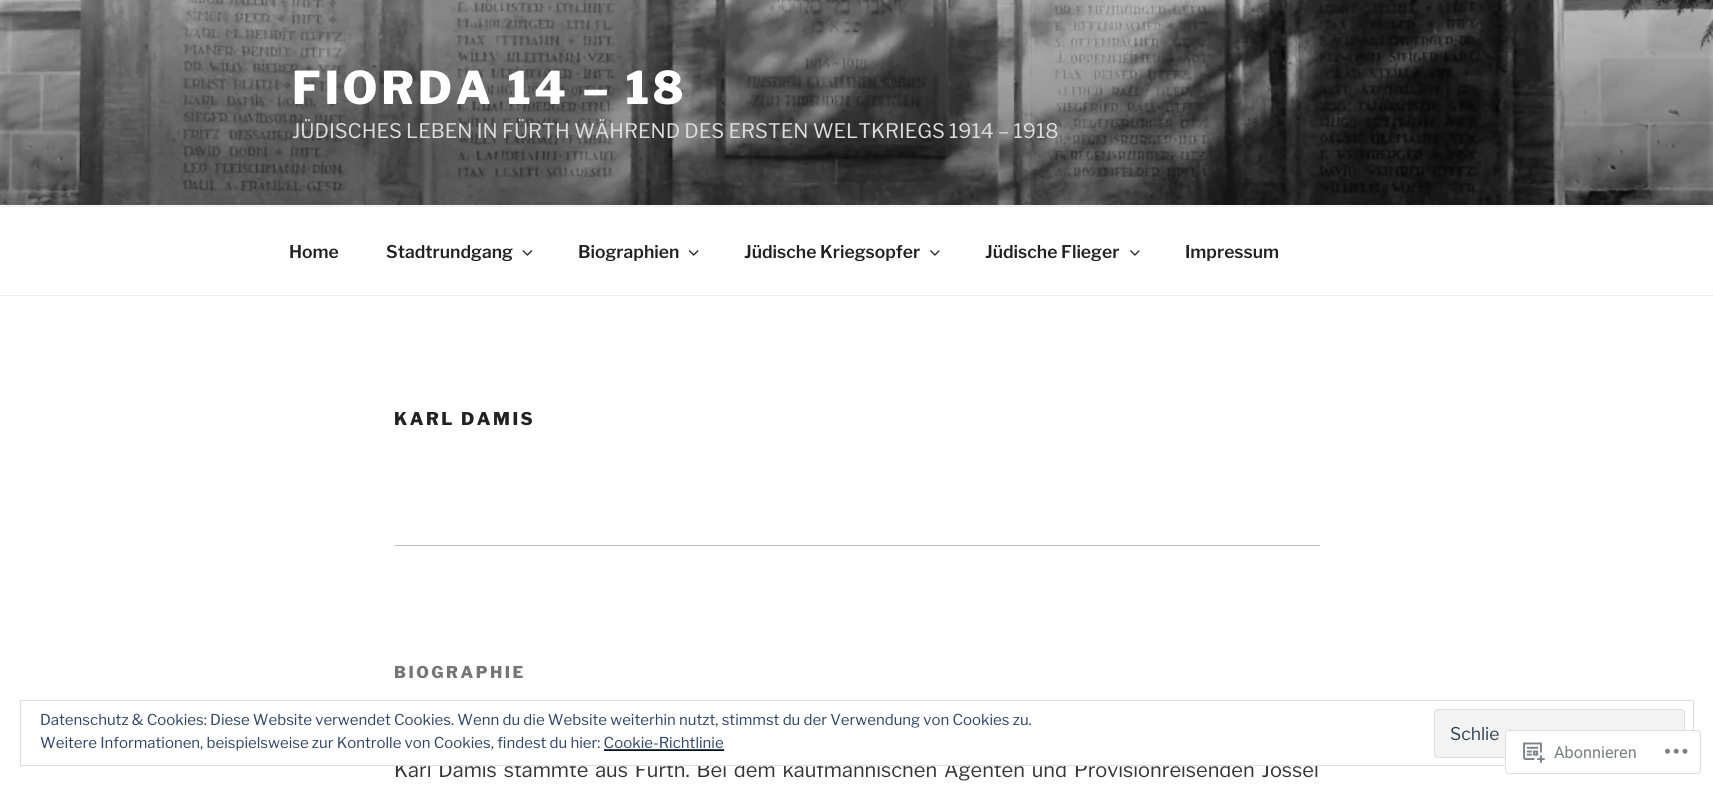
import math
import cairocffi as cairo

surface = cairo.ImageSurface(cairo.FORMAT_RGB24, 1713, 786)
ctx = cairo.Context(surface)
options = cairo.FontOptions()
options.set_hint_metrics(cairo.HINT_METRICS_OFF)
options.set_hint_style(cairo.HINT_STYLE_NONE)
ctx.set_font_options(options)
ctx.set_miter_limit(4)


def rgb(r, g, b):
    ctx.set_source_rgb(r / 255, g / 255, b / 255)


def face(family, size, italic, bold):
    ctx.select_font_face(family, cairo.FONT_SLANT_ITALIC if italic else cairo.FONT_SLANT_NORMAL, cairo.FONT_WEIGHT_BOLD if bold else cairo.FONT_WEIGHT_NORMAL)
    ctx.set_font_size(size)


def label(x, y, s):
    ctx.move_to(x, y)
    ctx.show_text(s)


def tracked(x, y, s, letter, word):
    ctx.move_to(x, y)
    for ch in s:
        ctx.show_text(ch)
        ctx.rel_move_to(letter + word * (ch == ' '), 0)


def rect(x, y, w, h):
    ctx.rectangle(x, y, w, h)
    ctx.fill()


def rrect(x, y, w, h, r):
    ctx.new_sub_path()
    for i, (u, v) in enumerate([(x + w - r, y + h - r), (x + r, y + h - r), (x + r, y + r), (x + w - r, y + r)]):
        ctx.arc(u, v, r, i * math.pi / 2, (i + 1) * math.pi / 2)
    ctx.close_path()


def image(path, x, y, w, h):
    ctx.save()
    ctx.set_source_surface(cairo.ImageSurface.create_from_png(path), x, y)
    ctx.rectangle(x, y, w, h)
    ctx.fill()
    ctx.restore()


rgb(255, 255, 255)
ctx.paint()
rgb(250, 250, 250)
rect(0, 205, 1713, 1)
image('image0.png', 0, 0, 1713, 205)
face('Libre Franklin Thin', 45, 0, 0)
rgb(255, 255, 255)
tracked(292, 104, 'FIORDA 14 – 18', 3.6, 0)
face('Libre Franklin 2 Thin', 20, 0, 0)
rgb(220, 220, 220)
label(292, 138, 'JÜDISCHES LEBEN IN FÜRTH WÄHREND DES ERSTEN WELTKRIEGS')
label(949, 138, '1914 – 1918')
rgb(238, 238, 238)
rect(0, 206, 1713, 1)
rect(0, 295, 1713, 1)
face('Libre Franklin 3 Thin', 17.5, 0, 0)
rgb(34, 34, 34)
label(289, 258, 'Home')
label(386, 258, 'Stadtrundgang')
image('image1.png', 522, 250, 11, 6)
label(578, 258, 'Biographien')
image('image2.png', 688, 250, 11, 6)
label(744, 258, 'Jüdische Kriegsopfer')
image('image3.png', 930, 250, 10, 6)
label(985, 258, 'Jüdische Flieger')
image('image3.png', 1130, 250, 10, 6)
label(1185, 258, 'Impressum')
face('Libre Franklin Thin', 17.5, 0, 0)
tracked(394, 425, 'KARL DAMIS', 2.5, 0)
rgb(187, 187, 187)
rect(395, 545, 925, 1)
face('Libre Franklin Thin', 16.25, 0, 0)
rgb(118, 118, 118)
tracked(394, 678, 'BIOGRAPHIE', 2.5, 0)
face('Libre Franklin 2 Thin', 20, 0, 0)
rgb(51, 51, 51)
tracked(394, 777, 'Karl Damis stammte aus Fürth. Bei dem kaufmännischen Agenten und Provisionreisenden Jossel', 0, 2.6)
rgb(255, 255, 255)
rect(396, 762, 922, 3)
ctx.rectangle(20.5, 700.5, 1673, 65)
rgb(222, 222, 222)
ctx.set_line_width(1)
ctx.stroke()
face('Libre Franklin 2 Thin', 15, 0, 0)
rgb(46, 68, 103)
label(40, 725, 'Datenschutz & Cookies: Diese Website verwendet Cookies. Wenn du die Website weiterhin nutzt, stimmst du der Verwendung von Cookies zu.')
rgb(243, 243, 243)
rrect(1434.5, 709.5, 250, 48, 3.5)
ctx.fill_preserve()
rgb(222, 222, 222)
ctx.stroke()
face('Libre Franklin 2 Thin', 17.5, 0, 0)
rgb(46, 68, 83)
label(1450, 740, 'Schlie')
face('Libre Franklin 2 Thin', 15, 0, 0)
rgb(46, 68, 103)
label(40, 748, 'Weitere Informationen, beispielsweise zur Kontrolle von Cookies, findest du hier: Cookie-Richtlinie')
rect(604, 749, 120, 1)
rgb(15, 15, 15)
rect(604, 750, 120, 1)
ctx.set_source_rgba(1, 1, 1, 0.98)
rrect(1505, 730, 196, 44, 4)
ctx.fill()
rrect(1505.5, 730.5, 195, 43, 3.5)
ctx.set_source_rgba(0.863, 0.863, 0.871, 0.98)
ctx.stroke()
image('image4.png', 1523, 742, 22, 21)
face('Roboto', 16.25, 0, 0)
rgb(123, 127, 132)
label(1554, 758, 'Abonnieren')
image('image5.png', 1665, 748, 23, 6)
surface.write_to_png('render.png')
